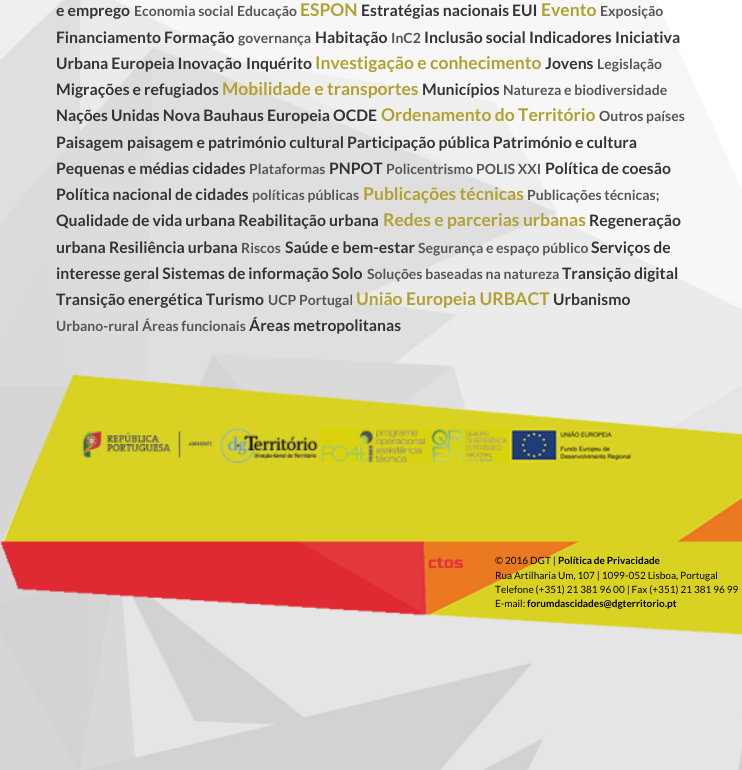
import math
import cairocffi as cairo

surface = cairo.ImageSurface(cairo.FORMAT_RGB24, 742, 770)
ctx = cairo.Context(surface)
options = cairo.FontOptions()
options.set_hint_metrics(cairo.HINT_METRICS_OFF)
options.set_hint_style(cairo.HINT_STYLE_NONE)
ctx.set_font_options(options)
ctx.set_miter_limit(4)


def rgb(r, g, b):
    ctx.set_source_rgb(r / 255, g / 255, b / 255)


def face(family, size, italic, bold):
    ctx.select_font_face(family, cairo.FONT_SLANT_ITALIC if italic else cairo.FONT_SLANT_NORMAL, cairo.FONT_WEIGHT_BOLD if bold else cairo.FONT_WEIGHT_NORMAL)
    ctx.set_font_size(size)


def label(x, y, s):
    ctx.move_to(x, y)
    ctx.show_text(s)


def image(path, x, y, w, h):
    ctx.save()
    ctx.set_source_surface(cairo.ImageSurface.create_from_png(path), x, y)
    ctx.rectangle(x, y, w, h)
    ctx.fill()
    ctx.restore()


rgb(255, 255, 255)
ctx.paint()
image('image0.png', 0, 0, 742, 770)
face('Lato', 15.75, 0, 1)
rgb(51, 51, 51)
label(56, 16, 'e emprego')
face('Lato', 14, 0, 1)
rgb(85, 85, 85)
label(134, 16, 'Economia social')
label(237, 16, 'Educação')
face('Lato', 17.5, 0, 1)
rgb(178, 161, 50)
label(300, 16, 'ESPON')
face('Lato', 15.75, 0, 1)
rgb(51, 51, 51)
label(361, 16, 'Estratégias nacionais EUI')
face('Lato', 17.5, 0, 1)
rgb(178, 161, 50)
label(541, 16, 'Evento')
face('Lato', 14, 0, 1)
rgb(85, 85, 85)
label(600, 16, 'Exposição')
face('Lato', 15.75, 0, 1)
rgb(51, 51, 51)
label(56, 43, 'Financiamento Formação')
face('Lato', 14, 0, 1)
rgb(85, 85, 85)
label(238, 43, 'governança')
face('Lato', 15.75, 0, 1)
rgb(51, 51, 51)
label(315, 43, 'Habitação')
face('Lato', 14, 0, 1)
rgb(85, 85, 85)
label(391, 43, 'InC2')
face('Lato', 15.75, 0, 1)
rgb(51, 51, 51)
label(424, 43, 'Inclusão social')
label(529, 43, 'Indicadores')
label(615, 43, 'Iniciativa')
label(56, 69, 'Urbana Europeia Inovação')
label(246, 69, 'Inquérito')
face('Lato', 17.5, 0, 1)
rgb(178, 161, 50)
label(315, 69, 'Investigação e conhecimento')
face('Lato', 15.75, 0, 1)
rgb(51, 51, 51)
label(545, 69, 'Jovens')
face('Lato', 14, 0, 1)
rgb(85, 85, 85)
label(597, 69, 'Legislação')
face('Lato', 15.75, 0, 1)
rgb(51, 51, 51)
label(56, 95, 'Migrações e refugiados')
face('Lato', 17.5, 0, 1)
rgb(178, 161, 50)
label(222, 95, 'Mobilidade e transportes')
face('Lato', 15.75, 0, 1)
rgb(51, 51, 51)
label(422, 95, 'Municípios')
face('Lato', 14, 0, 1)
rgb(85, 85, 85)
label(503, 95, 'Natureza e biodiversidade')
face('Lato', 15.75, 0, 1)
rgb(51, 51, 51)
label(56, 121, 'Nações Unidas Nova Bauhaus Europeia OCDE')
face('Lato', 17.5, 0, 1)
rgb(178, 161, 50)
label(381, 121, 'Ordenamento do Território')
face('Lato', 14, 0, 1)
rgb(85, 85, 85)
label(599, 121, 'Outros países')
face('Lato', 15.75, 0, 1)
rgb(51, 51, 51)
label(56, 148, 'Paisagem')
label(127, 148, 'paisagem e património cultural Participação pública Património e cultura')
label(56, 174, 'Pequenas e médias cidades')
face('Lato', 14, 0, 1)
rgb(85, 85, 85)
label(249, 174, 'Plataformas')
face('Lato', 15.75, 0, 1)
rgb(51, 51, 51)
label(329, 174, 'PNPOT')
face('Lato', 14, 0, 1)
rgb(85, 85, 85)
label(386, 174, 'Policentrismo')
label(476, 174, 'POLIS XXI')
face('Lato', 15.75, 0, 1)
rgb(51, 51, 51)
label(545, 174, 'Política de coesão')
label(56, 200, 'Política nacional de cidades')
face('Lato', 14, 0, 1)
rgb(85, 85, 85)
label(252, 200, 'políticas públicas')
face('Lato', 17.5, 0, 1)
rgb(178, 161, 50)
label(363, 200, 'Publicações técnicas')
face('Lato', 14, 0, 1)
rgb(85, 85, 85)
label(527, 200, 'Publicações técnicas;')
face('Lato', 15.75, 0, 1)
rgb(51, 51, 51)
label(56, 226, 'Qualidade de vida urbana Reabilitação urbana')
face('Lato', 17.5, 0, 1)
rgb(178, 161, 50)
label(383, 226, 'Redes e parcerias urbanas')
face('Lato', 15.75, 0, 1)
rgb(51, 51, 51)
label(589, 226, 'Regeneração')
label(56, 253, 'urbana')
label(109, 253, 'Resiliência urbana')
face('Lato', 14, 0, 1)
rgb(85, 85, 85)
label(241, 253, 'Riscos')
face('Lato', 15.75, 0, 1)
rgb(51, 51, 51)
label(285, 253, 'Saúde e bem-estar')
face('Lato', 14, 0, 1)
rgb(85, 85, 85)
label(418, 253, 'Segurança e espaço público')
face('Lato', 15.75, 0, 1)
rgb(51, 51, 51)
label(591, 253, 'Serviços de')
label(56, 279, 'interesse geral Sistemas de informação Solo')
face('Lato', 14, 0, 1)
rgb(85, 85, 85)
label(367, 279, 'Soluções baseadas na natureza')
face('Lato', 15.75, 0, 1)
rgb(51, 51, 51)
label(562, 279, 'Transição digital')
label(56, 305, 'Transição energética Turismo')
face('Lato', 14, 0, 1)
rgb(85, 85, 85)
label(268, 305, 'UCP Portugal')
face('Lato', 17.5, 0, 1)
rgb(178, 161, 50)
label(356, 305, 'União Europeia URBACT')
face('Lato', 15.75, 0, 1)
rgb(51, 51, 51)
label(553, 305, 'Urbanismo')
face('Lato', 14, 0, 1)
rgb(85, 85, 85)
label(56, 331, 'Urbano-rural')
label(142, 331, 'Áreas funcionais')
face('Lato', 15.75, 0, 1)
rgb(51, 51, 51)
label(249, 331, 'Áreas metropolitanas')
image('image1.png', 1, 374, 741, 262)
image('image2.png', 82, 427, 131, 31)
image('image3.png', 219, 427, 100, 36)
image('image4.png', 318, 427, 111, 36)
image('image5.png', 429, 427, 81, 36)
image('image6.png', 510, 428, 123, 34)
face('Russo One', 16, 0, 0)
rgb(226, 55, 61)
label(428, 568, 'ctos')
face('Lato', 10, 0, 0)
rgb(0, 0, 0)
label(495, 564, '© 2016 DGT |')
face('Lato', 10, 0, 1)
label(558, 564, 'Política de Privacidade')
face('Lato', 10, 0, 0)
label(495, 579, 'Rua Artilharia Um, 107 | 1099-052 Lisboa, Portugal')
label(495, 593, 'Telefone (+351) 21 381 96 00 | Fax (+351) 21 381 96 99')
label(495, 607, 'E-mail:')
face('Lato', 10, 0, 1)
label(527, 607, 'forumdascidades@dgterritorio.pt')
surface.write_to_png('render.png')
